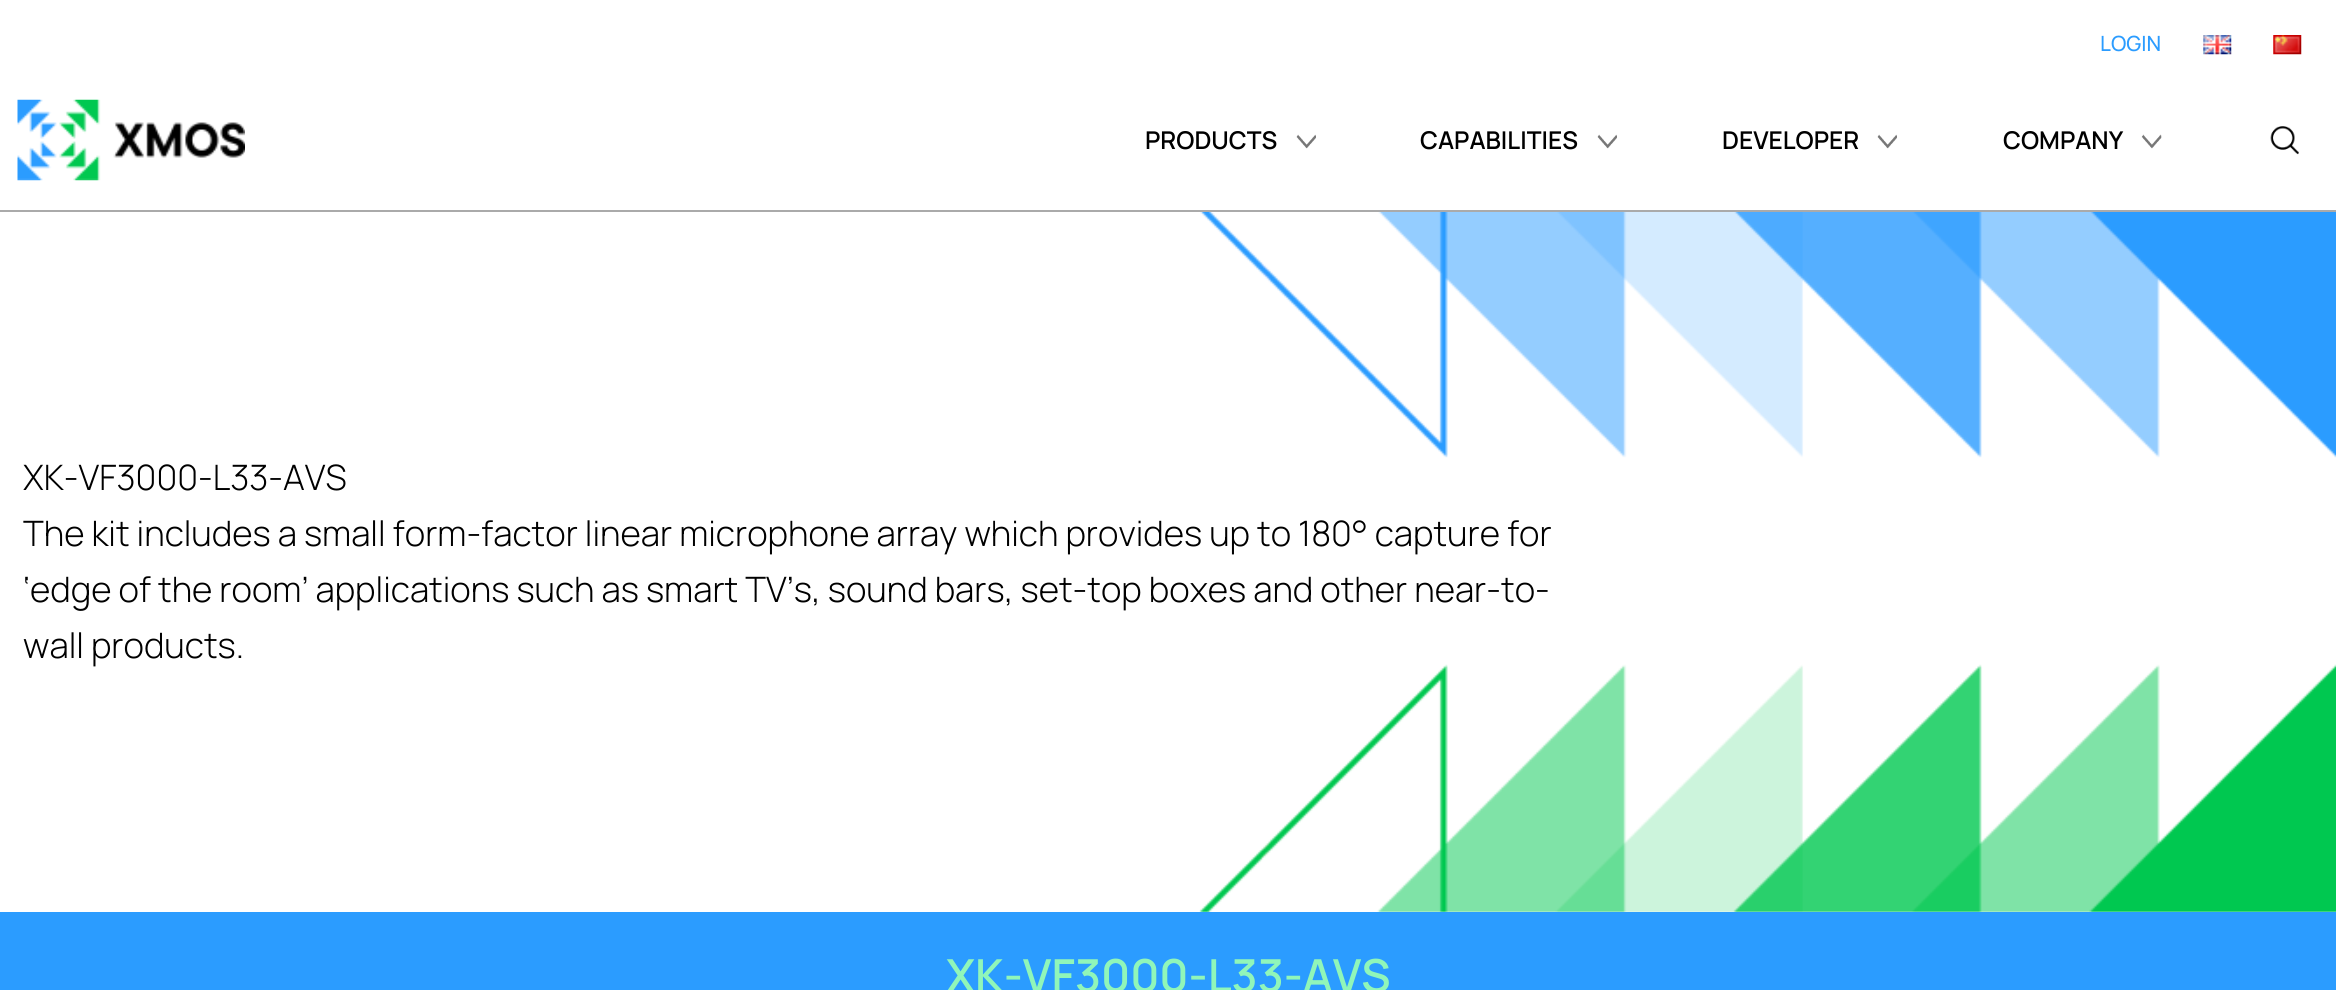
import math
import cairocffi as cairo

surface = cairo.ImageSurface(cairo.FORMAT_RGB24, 2336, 990)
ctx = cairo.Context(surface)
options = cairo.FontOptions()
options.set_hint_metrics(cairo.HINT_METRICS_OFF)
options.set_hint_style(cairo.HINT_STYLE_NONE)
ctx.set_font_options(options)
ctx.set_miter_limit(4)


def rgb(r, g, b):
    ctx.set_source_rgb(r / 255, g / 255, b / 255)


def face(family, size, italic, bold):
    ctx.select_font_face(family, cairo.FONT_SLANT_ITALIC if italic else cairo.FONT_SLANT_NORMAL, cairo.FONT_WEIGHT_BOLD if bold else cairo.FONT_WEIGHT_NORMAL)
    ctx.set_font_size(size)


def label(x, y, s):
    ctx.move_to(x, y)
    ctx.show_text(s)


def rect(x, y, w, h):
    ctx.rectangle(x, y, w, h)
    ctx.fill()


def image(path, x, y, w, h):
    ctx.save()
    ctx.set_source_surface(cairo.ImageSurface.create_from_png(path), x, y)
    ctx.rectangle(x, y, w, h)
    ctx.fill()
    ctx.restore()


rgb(255, 255, 255)
ctx.paint()
face('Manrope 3 ExtraLight', 21, 0, 0)
rgb(43, 156, 255)
label(2100, 51, 'LOGIN')
image('image0.png', 2203, 35, 29, 20)
image('image1.png', 2273, 35, 29, 20)
rgb(170, 170, 170)
rect(0, 210, 2336, 2)
image('image2.png', 17, 99, 228, 82)
face('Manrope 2 ExtraLight', 24.5, 0, 0)
rgb(0, 0, 0)
label(1145, 149, 'PRODUCTS')
image('image3.png', 1296, 134, 20, 15)
label(1420, 149, 'CAPABILITIES')
image('image4.png', 1597, 134, 20, 15)
label(1722, 149, 'DEVELOPER')
image('image5.png', 1877, 134, 20, 15)
label(2003, 149, 'COMPANY')
image('image6.png', 2141, 134, 21, 15)
image('image7.png', 2270, 126, 29, 29)
image('image8.png', 1199, 212, 1137, 700)
face('Manrope ExtraLight', 35, 0, 0)
label(23, 490, 'XK-VF3000-L33-AVS')
label(23, 546, 'The kit includes a small form-factor linear microphone array which provides up to 180° capture for')
label(23, 602, '‘edge of the room’ applications such as smart TV’s, sound bars, set-top boxes and other near-to-')
label(23, 658, 'wall products.')
rgb(43, 156, 255)
rect(0, 912, 2336, 78)
face('Manrope 2 ExtraLight', 45.5, 0, 0)
rgb(144, 246, 185)
label(946, 992, 'XK-VF3000-L33-AVS')
surface.write_to_png('render.png')
